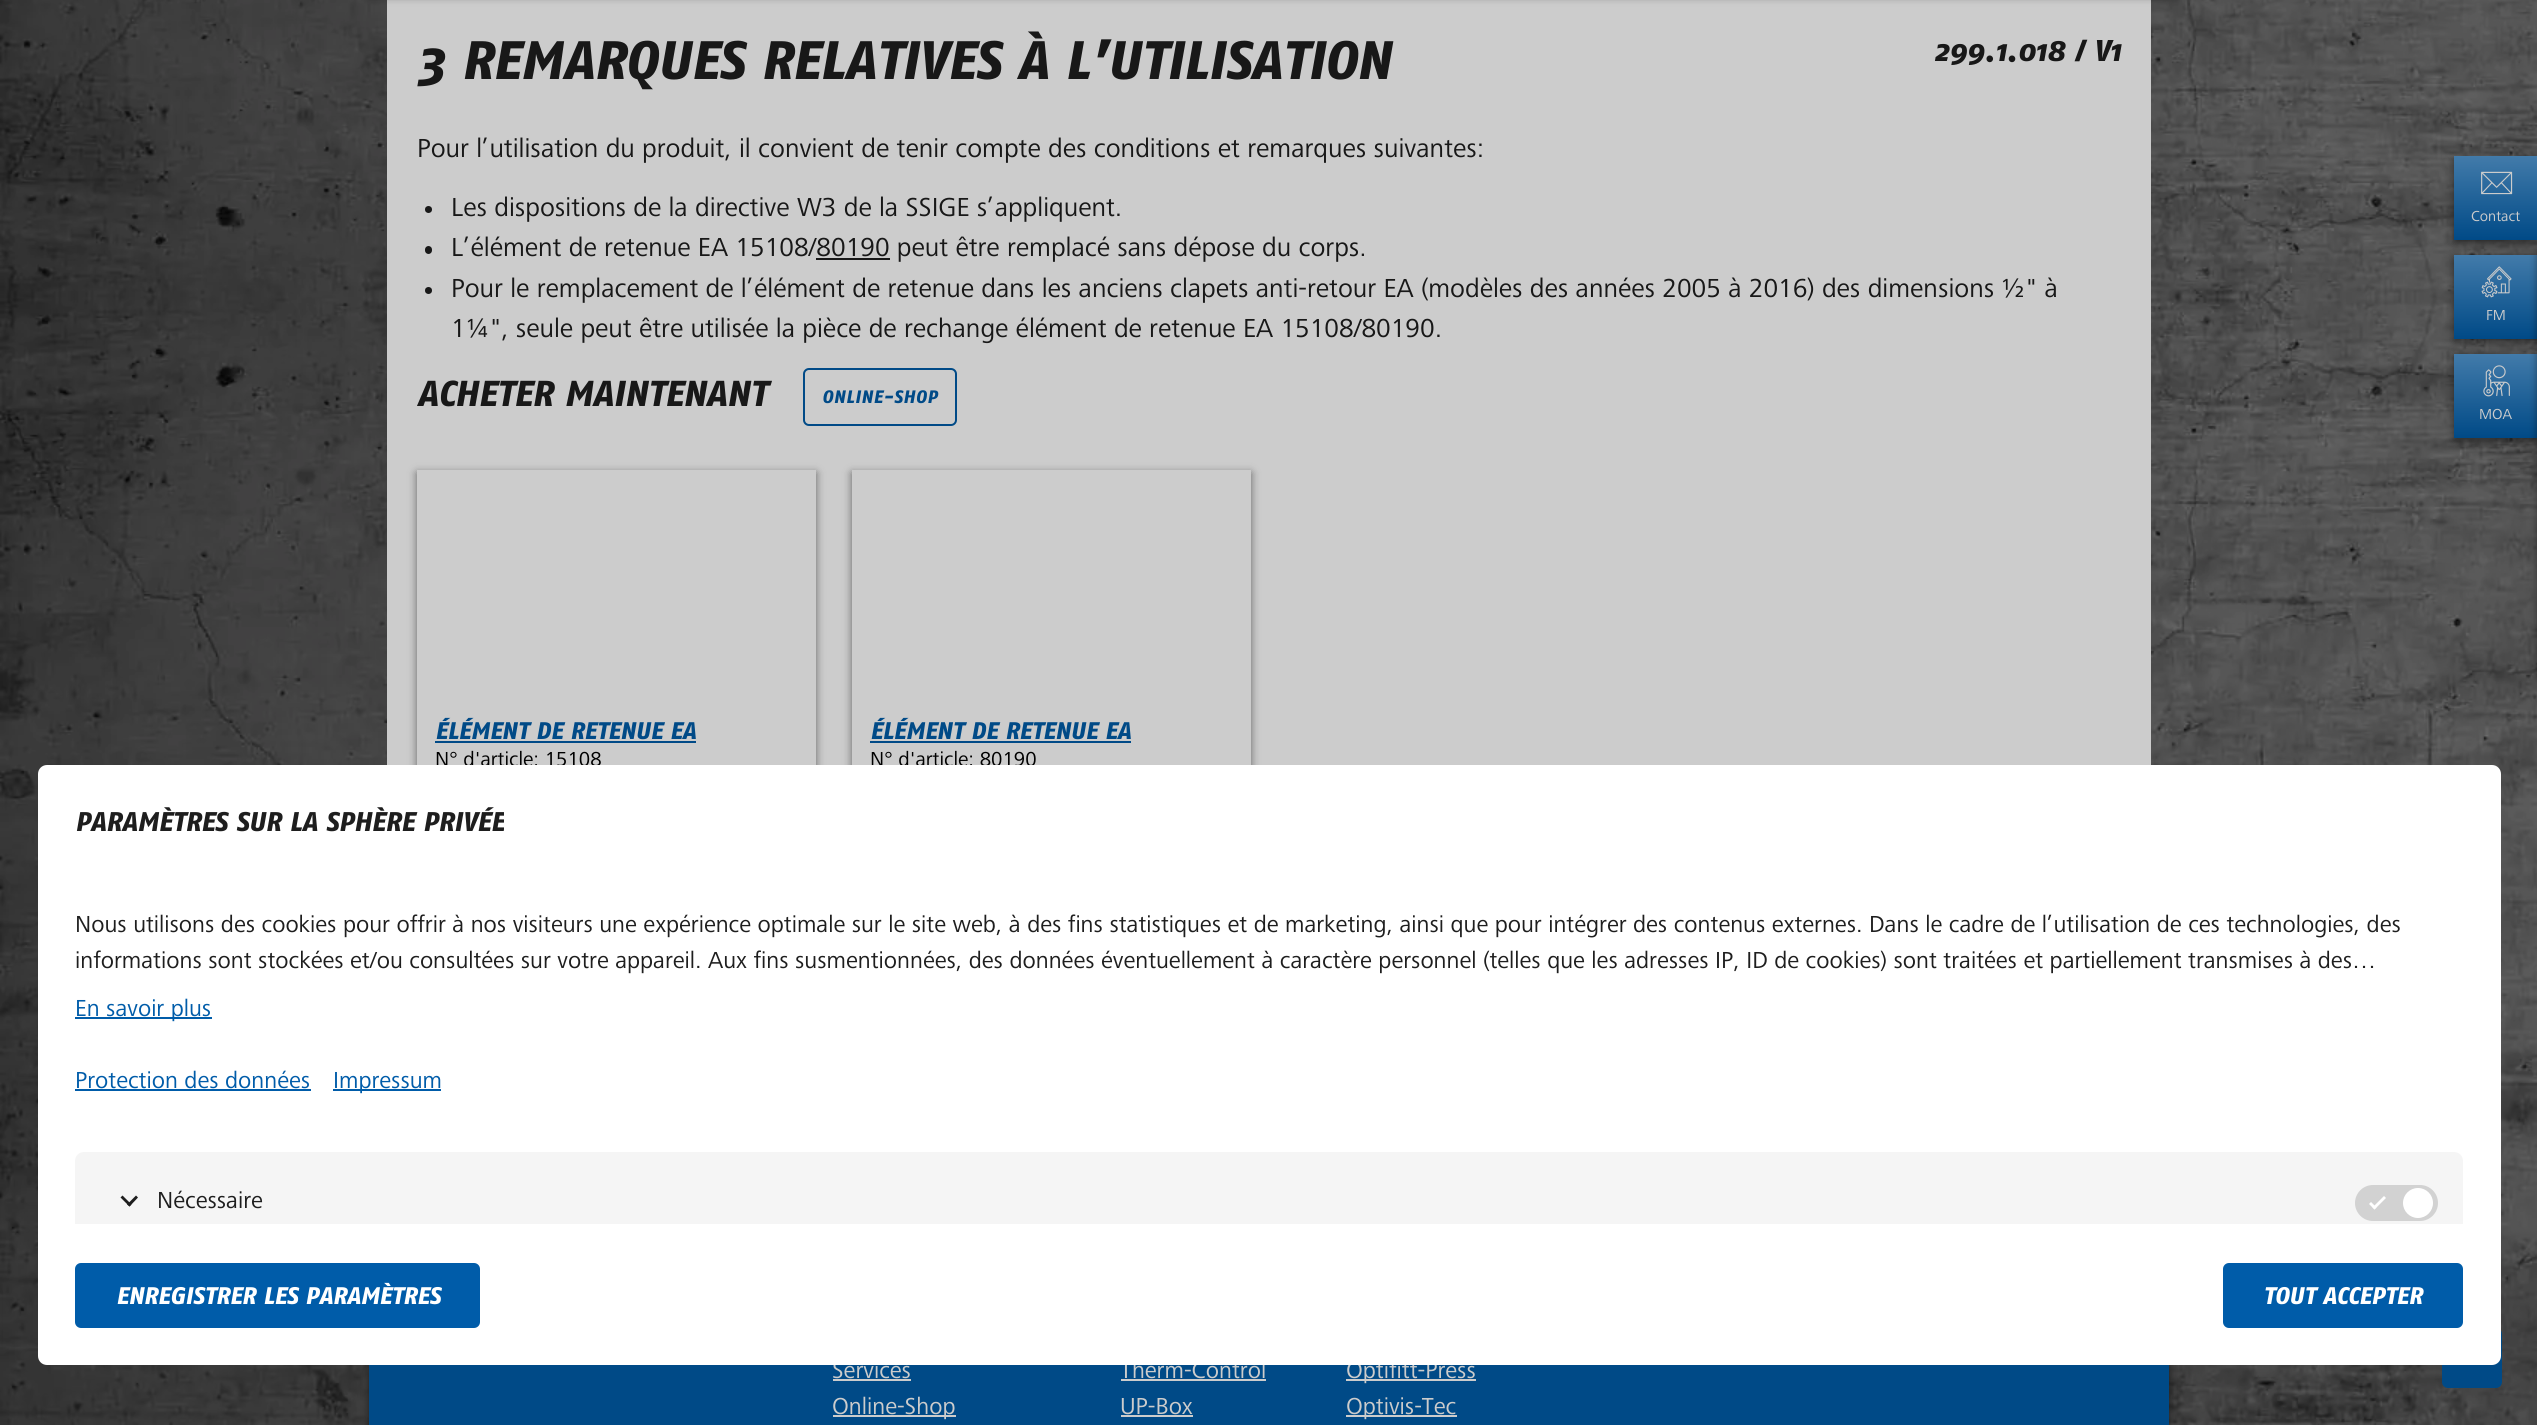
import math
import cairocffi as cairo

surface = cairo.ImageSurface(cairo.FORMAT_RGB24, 2537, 1425)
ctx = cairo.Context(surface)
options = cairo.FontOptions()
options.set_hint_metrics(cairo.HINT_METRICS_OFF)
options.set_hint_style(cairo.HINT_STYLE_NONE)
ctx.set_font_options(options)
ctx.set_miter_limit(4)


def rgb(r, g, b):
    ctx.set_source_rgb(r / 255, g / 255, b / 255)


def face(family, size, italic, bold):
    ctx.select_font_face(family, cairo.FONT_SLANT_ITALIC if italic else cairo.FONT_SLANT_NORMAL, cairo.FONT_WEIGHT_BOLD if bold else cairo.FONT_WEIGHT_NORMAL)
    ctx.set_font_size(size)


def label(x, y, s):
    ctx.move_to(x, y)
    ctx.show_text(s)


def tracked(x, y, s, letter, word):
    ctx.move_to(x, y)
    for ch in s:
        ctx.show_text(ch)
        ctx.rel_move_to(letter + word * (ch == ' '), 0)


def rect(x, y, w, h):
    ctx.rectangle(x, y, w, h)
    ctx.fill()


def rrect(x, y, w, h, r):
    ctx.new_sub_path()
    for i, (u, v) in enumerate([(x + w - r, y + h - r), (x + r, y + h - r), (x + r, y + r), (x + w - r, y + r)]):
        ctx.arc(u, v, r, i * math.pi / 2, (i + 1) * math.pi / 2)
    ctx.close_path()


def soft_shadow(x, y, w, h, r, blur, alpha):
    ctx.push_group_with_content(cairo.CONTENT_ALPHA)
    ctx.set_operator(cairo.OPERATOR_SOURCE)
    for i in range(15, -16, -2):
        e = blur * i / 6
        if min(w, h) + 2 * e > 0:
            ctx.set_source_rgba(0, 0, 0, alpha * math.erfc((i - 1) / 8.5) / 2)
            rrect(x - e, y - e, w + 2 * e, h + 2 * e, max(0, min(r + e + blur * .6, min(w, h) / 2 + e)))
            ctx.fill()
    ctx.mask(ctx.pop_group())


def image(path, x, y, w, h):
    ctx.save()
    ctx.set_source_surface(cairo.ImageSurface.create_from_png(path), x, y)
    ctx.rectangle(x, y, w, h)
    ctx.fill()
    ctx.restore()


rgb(255, 255, 255)
ctx.paint()
image('image0.png', 0, 0, 2537, 1425)
rgb(204, 204, 204)
rect(387, 0, 1764, 765)
rgb(0, 0, 0)
soft_shadow(369, -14, 1800, 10, 0, 4.5, 0.5)
face('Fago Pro', 54, 0, 1)
rgb(24, 24, 24)
label(417, 79, '3 REMARQUES RELATIVES À L’UTILISATION')
face('Fago Pro', 30, 0, 1)
label(1934, 61, '299.1.018 / V1')
face('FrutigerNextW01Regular', 27, 0, 0)
label(417, 157, 'Pour l’utilisation du produit, il convient de tenir compte des conditions et remarques suivantes:')
ctx.new_path()
ctx.arc(428.5, 209.5, 3.5, 0, 2 * math.pi)
ctx.fill()
label(451, 216, 'Les dispositions de la directive W3 de la SSIGE s’appliquent.')
rrect(425, 246, 7, 8, 3.5)
ctx.fill()
label(451, 256, 'L’élément de retenue EA 15108/80190 peut être remplacé sans dépose du corps.')
rect(816, 258, 74, 2)
ctx.new_path()
ctx.arc(428.5, 290.5, 3.5, 0, 2 * math.pi)
ctx.fill()
label(451, 297, 'Pour le remplacement de l’élément de retenue dans les anciens clapets anti-retour EA (modèles des années 2005 à 2016) des dimensions ½" à')
label(451, 337, '1¼", seule peut être utilisée la pièce de rechange élément de retenue EA 15108/80190.')
face('Fago Pro', 36, 0, 1)
label(417, 406, 'ACHETER MAINTENANT')
rrect(804, 369, 152, 56, 5)
rgb(0, 74, 135)
ctx.stroke()
face('Fago Pro', 18, 0, 1)
tracked(822, 403, 'ONLINE-SHOP', 0.75, 0)
ctx.save()
ctx.set_fill_rule(cairo.FILL_RULE_EVEN_ODD)
ctx.new_path()
ctx.move_to(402, 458)
ctx.line_to(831, 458)
ctx.line_to(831, 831)
ctx.line_to(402, 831)
ctx.close_path()
ctx.move_to(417, 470)
ctx.line_to(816, 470)
ctx.line_to(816, 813)
ctx.line_to(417, 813)
ctx.close_path()
ctx.clip()
rgb(0, 0, 0)
soft_shadow(417, 473, 399, 343, 0, 4.5, 0.5)
ctx.restore()
face('Fago Pro', 24, 0, 1)
label(435, 739, 'ÉLÉMENT DE RETENUE EA')
rect(435, 741, 261, 2)
face('FrutigerNextW01Regular', 21, 0, 0)
rgb(0, 0, 0)
label(435, 766, 'N° d\'article: 15108')
ctx.save()
ctx.set_fill_rule(cairo.FILL_RULE_EVEN_ODD)
ctx.new_path()
ctx.move_to(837, 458)
ctx.line_to(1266, 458)
ctx.line_to(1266, 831)
ctx.line_to(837, 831)
ctx.close_path()
ctx.move_to(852, 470)
ctx.line_to(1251, 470)
ctx.line_to(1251, 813)
ctx.line_to(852, 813)
ctx.close_path()
ctx.clip()
rgb(0, 0, 0)
soft_shadow(852, 473, 399, 343, 0, 4.5, 0.5)
ctx.restore()
face('Fago Pro', 24, 0, 1)
rgb(0, 74, 135)
label(870, 739, 'ÉLÉMENT DE RETENUE EA')
rect(870, 741, 261, 2)
face('FrutigerNextW01Regular', 21, 0, 0)
rgb(0, 0, 0)
label(870, 766, 'N° d\'article: 80190')
rgb(0, 0, 0)
soft_shadow(2454, 159, 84, 84, 0, 4.5, 0.5)
gradient = cairo.LinearGradient(2496, 156, 2496, 240)
gradient.add_color_stop_rgba(0, 0.259, 0.482, 0.667, 1)
gradient.add_color_stop_rgba(1, 0, 0.29, 0.529, 1)
ctx.set_source(gradient)
rect(2454, 156, 83, 84)
image('image1.png', 2481, 171, 32, 24)
face('FrutigerNextW01Regular', 15, 0, 0)
rgb(204, 204, 204)
label(2471, 221, 'Contact')
rgb(0, 0, 0)
soft_shadow(2454, 258, 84, 84, 0, 4.5, 0.5)
gradient = cairo.LinearGradient(2496, 255, 2496, 339)
gradient.add_color_stop_rgba(0, 0.259, 0.482, 0.667, 1)
gradient.add_color_stop_rgba(1, 0, 0.29, 0.529, 1)
ctx.set_source(gradient)
rect(2454, 255, 83, 84)
rgb(0, 0, 0)
soft_shadow(2454, 357, 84, 84, 0, 4.5, 0.5)
gradient = cairo.LinearGradient(2496, 354, 2496, 438)
gradient.add_color_stop_rgba(0, 0.259, 0.482, 0.667, 1)
gradient.add_color_stop_rgba(1, 0, 0.29, 0.529, 1)
ctx.set_source(gradient)
rect(2454, 354, 83, 84)
rgb(0, 0, 0)
soft_shadow(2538, 251, 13, 427, 0, 4.5, 0.5)
image('image2.png', 2481, 266, 31, 32)
rgb(204, 204, 204)
label(2486, 320, 'FM')
image('image3.png', 2483, 365, 27, 32)
label(2479, 419, 'MOA')
rgb(255, 255, 255)
ctx.new_path()
ctx.move_to(47, 765)
ctx.line_to(2492, 765)
ctx.curve_to(2497, 765, 2501, 769, 2501, 774)
ctx.line_to(2501, 882)
ctx.line_to(38, 882)
ctx.line_to(38, 774)
ctx.curve_to(38, 769, 42, 765, 47, 765)
ctx.close_path()
ctx.fill()
ctx.save()
ctx.rectangle(75, 803, 429, 40)
ctx.clip()
face('Fago Pro', 27, 0, 1)
rgb(30, 30, 30)
label(75, 831, 'PARAMÈTRES SUR LA SPHÈRE PRIVÉE')
ctx.restore()
rgb(0, 0, 0)
soft_shadow(369, 1037, 1800, 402, 0, 4.5, 0.5)
rgb(0, 74, 135)
rect(369, 1365, 1800, 60)
rgb(204, 204, 204)
rect(833, 1379, 78, 2)
rect(1121, 1379, 145, 2)
rect(1346, 1379, 130, 2)
rgb(0, 74, 135)
rrect(2442, 1328, 60, 60, 6)
ctx.fill()
ctx.save()
rrect(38, 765, 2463, 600, 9)
ctx.clip()
rgb(0, 0, 0)
soft_shadow(38, 1229, 2463, 141, 0, 5, 0.1)
ctx.restore()
rgb(255, 255, 255)
rect(38, 882, 2463, 342)
face('FrutigerNextW01Regular', 24, 0, 0)
rgb(30, 30, 30)
label(75, 932, 'Nous utilisons des cookies pour offrir à nos visiteurs une expérience optimale sur le site web, à des fins statistiques et de marketing, ainsi que pour intégrer des contenus externes. Dans le cadre de l’utilisation de ces technologies, des')
label(75, 968, 'informations sont stockées et/ou consultées sur votre appareil. Aux fins susmentionnées, des données éventuellement à caractère personnel (telles que les adresses IP, ID de cookies) sont traitées et partiellement transmises à des…')
rgb(0, 92, 169)
rect(75, 1017, 137, 2)
label(75, 1016, 'En savoir plus')
label(75, 1088, 'Protection des données')
rect(75, 1089, 236, 2)
rect(333, 1089, 108, 2)
label(333, 1088, 'Impressum')
rgb(245, 245, 245)
ctx.new_path()
ctx.move_to(84, 1152)
ctx.line_to(2454, 1152)
ctx.curve_to(2459, 1152, 2463, 1156, 2463, 1161)
ctx.line_to(2463, 1224)
ctx.line_to(75, 1224)
ctx.line_to(75, 1161)
ctx.curve_to(75, 1156, 79, 1152, 84, 1152)
ctx.close_path()
ctx.fill()
rgb(30, 30, 30)
ctx.new_path()
ctx.move_to(136, 1195.5)
ctx.line_to(138, 1197.5)
ctx.line_to(129.5, 1206.5)
ctx.line_to(127, 1204.5)
ctx.close_path()
ctx.fill()
ctx.new_path()
ctx.move_to(122.5, 1195.5)
ctx.line_to(131.5, 1204.5)
ctx.line_to(129.5, 1206.5)
ctx.line_to(120.5, 1197.5)
ctx.close_path()
ctx.fill()
label(157, 1208, 'Nécessaire')
rgb(210, 210, 210)
rrect(2355, 1185, 83, 36, 18)
ctx.fill()
rgb(255, 255, 255)
ctx.new_path()
ctx.move_to(2384, 1196)
ctx.line_to(2386, 1198)
ctx.line_to(2374.5, 1209.5)
ctx.line_to(2372.5, 1207.5)
ctx.close_path()
ctx.fill()
ctx.new_path()
ctx.move_to(2371, 1202)
ctx.line_to(2376.5, 1207.5)
ctx.line_to(2374.5, 1209.5)
ctx.line_to(2369, 1204)
ctx.close_path()
ctx.fill()
ctx.arc(2418, 1203, 15, 0, 2 * math.pi)
ctx.fill()
rgb(204, 204, 204)
label(832, 1378, 'Services')
label(1120, 1378, 'Therm-Control')
label(1346, 1378, 'Optifitt-Press')
rgb(255, 255, 255)
ctx.new_path()
ctx.move_to(38, 1224)
ctx.line_to(2501, 1224)
ctx.line_to(2501, 1356)
ctx.curve_to(2501, 1361, 2497, 1365, 2492, 1365)
ctx.line_to(47, 1365)
ctx.curve_to(42, 1365, 38, 1361, 38, 1356)
ctx.close_path()
ctx.fill()
rgb(0, 92, 169)
rrect(76, 1264, 403, 63, 5)
ctx.fill_preserve()
ctx.stroke()
face('Fago Pro', 24, 0, 1)
rgb(255, 255, 255)
label(116, 1304, 'ENREGISTRER LES PARAMÈTRES')
rgb(0, 92, 169)
rrect(2224, 1264, 238, 63, 5)
ctx.fill_preserve()
ctx.stroke()
rgb(255, 255, 255)
label(2263, 1304, 'TOUT ACCEPTER')
rgb(204, 204, 204)
rect(833, 1415, 123, 2)
face('FrutigerNextW01Regular', 24, 0, 0)
label(832, 1414, 'Online-Shop')
label(1120, 1414, 'UP-Box')
rect(1121, 1415, 72, 2)
rect(1346, 1415, 111, 2)
label(1346, 1414, 'Optivis-Tec')
surface.write_to_png('render.png')
